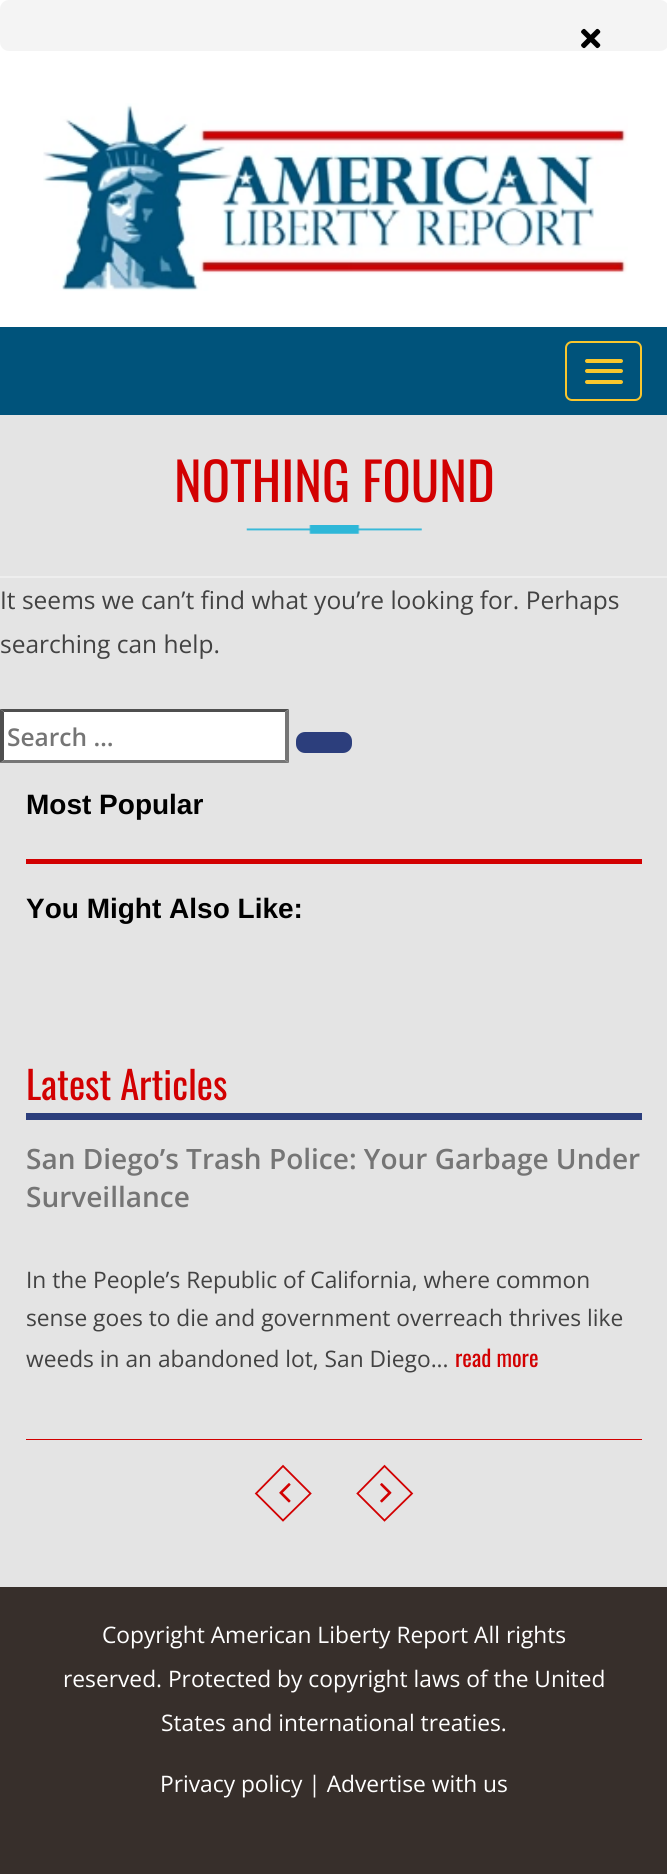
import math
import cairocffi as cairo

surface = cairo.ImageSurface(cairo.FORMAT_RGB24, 667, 1874)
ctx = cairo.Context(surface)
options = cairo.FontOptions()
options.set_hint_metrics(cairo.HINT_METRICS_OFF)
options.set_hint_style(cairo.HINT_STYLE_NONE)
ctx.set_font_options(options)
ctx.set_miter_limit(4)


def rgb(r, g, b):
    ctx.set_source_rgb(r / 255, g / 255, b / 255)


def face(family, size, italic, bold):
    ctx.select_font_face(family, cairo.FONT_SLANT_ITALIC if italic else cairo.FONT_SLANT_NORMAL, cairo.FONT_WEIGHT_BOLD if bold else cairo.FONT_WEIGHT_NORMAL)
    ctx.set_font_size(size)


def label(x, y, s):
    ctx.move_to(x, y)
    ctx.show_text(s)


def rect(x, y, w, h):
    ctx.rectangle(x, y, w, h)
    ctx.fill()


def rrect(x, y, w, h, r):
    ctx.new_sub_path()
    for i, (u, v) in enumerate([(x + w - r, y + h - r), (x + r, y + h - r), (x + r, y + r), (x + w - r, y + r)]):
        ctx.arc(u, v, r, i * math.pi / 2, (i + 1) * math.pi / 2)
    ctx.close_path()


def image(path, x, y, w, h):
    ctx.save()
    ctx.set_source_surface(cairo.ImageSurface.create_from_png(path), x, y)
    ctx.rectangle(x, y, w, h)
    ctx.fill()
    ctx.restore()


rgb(228, 228, 228)
ctx.paint()
rgb(255, 255, 255)
rect(0, 0, 667, 327)
rgb(244, 244, 244)
rrect(0, 0, 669, 51, 9)
ctx.fill()
image('image0.png', 581, 28, 20, 21)
image('image1.png', 43, 103, 585, 188)
rgb(0, 83, 123)
rect(0, 327, 667, 88)
rrect(566, 342, 75, 58, 6)
rgb(249, 198, 45)
ctx.stroke()
rrect(585, 359, 38, 4, 2)
ctx.fill()
rrect(585, 369, 38, 4, 2)
ctx.fill()
rrect(585, 380, 38, 4, 2)
ctx.fill()
rgb(238, 238, 238)
rect(0, 576, 667, 2)
image('image2.png', 246, 525, 176, 9)
face('Oswald', 52.5, 0, 0)
rgb(210, 0, 1)
label(174, 502, 'NOTHING FOUND')
face('Open Sans', 24.5, 0, 0)
rgb(66, 66, 66)
label(0, 609, 'It seems we can’t find what you’re looking for. Perhaps')
label(0, 653, 'searching can help.')
rgb(255, 255, 255)
rect(0, 709, 289, 54)
rgb(79, 79, 79)
ctx.new_path()
ctx.move_to(0, 709)
ctx.line_to(289, 709)
ctx.line_to(285, 712)
ctx.line_to(4, 712)
ctx.close_path()
ctx.fill()
rgb(118, 118, 118)
ctx.new_path()
ctx.move_to(289, 709)
ctx.line_to(289, 763)
ctx.line_to(285, 760)
ctx.line_to(285, 712)
ctx.close_path()
ctx.fill()
ctx.new_path()
ctx.move_to(289, 763)
ctx.line_to(0, 763)
ctx.line_to(4, 760)
ctx.line_to(285, 760)
ctx.close_path()
ctx.fill()
rgb(79, 79, 79)
ctx.new_path()
ctx.move_to(0, 763)
ctx.line_to(0, 709)
ctx.line_to(4, 712)
ctx.line_to(4, 760)
ctx.close_path()
ctx.fill()
face('Open Sans SemiBold', 24.5, 0, 0)
rgb(117, 117, 117)
label(7, 746, 'Search …')
rgb(44, 62, 124)
rrect(296, 732, 56, 21, 9)
ctx.fill()
face('Liberation Sans', 28, 0, 1)
rgb(0, 0, 0)
label(26, 814, 'Most Popular')
rgb(210, 0, 1)
rect(26, 859, 616, 5)
rgb(0, 0, 0)
label(26, 918, 'You Might Also Like:')
rgb(44, 62, 124)
rect(26, 1113, 616, 7)
face('Oswald', 38.5, 0, 0)
rgb(210, 0, 1)
label(26, 1100, 'Latest Articles')
rect(26, 1439, 616, 1)
face('Open Sans SemiBold', 28, 0, 0)
rgb(117, 117, 117)
label(26, 1169, 'San Diego’s Trash Police: Your Garbage Under')
label(26, 1207, 'Surveillance')
face('Open Sans', 22.75, 0, 0)
rgb(66, 66, 66)
label(26, 1288, 'In the People’s Republic of California, where common')
label(26, 1326, 'sense goes to die and government overreach thrives like')
label(26, 1367, 'weeds in an abandoned lot, San Diego...')
face('Oswald', 22.75, 0, 0)
rgb(210, 0, 1)
label(455, 1367, 'read more')
ctx.new_path()
ctx.move_to(283, 1466)
ctx.line_to(310.5, 1493.5)
ctx.line_to(283, 1520.5)
ctx.line_to(256, 1493.5)
ctx.close_path()
ctx.set_line_width(1.8)
ctx.stroke()
image('image3.png', 279, 1483, 12, 20)
ctx.new_path()
ctx.move_to(384.5, 1466)
ctx.line_to(412, 1493.5)
ctx.line_to(384.5, 1520.5)
ctx.line_to(357.5, 1493.5)
ctx.close_path()
ctx.stroke()
image('image4.png', 380, 1483, 12, 20)
rgb(55, 47, 43)
rect(0, 1587, 667, 287)
face('Open Sans', 22.75, 0, 0)
rgb(255, 255, 255)
label(102, 1643, 'Copyright American Liberty Report All rights')
label(63, 1687, 'reserved. Protected by copyright laws of the United')
label(161, 1731, 'States and international treaties.')
label(160, 1792, 'Privacy policy | Advertise with us')
surface.write_to_png('render.png')
